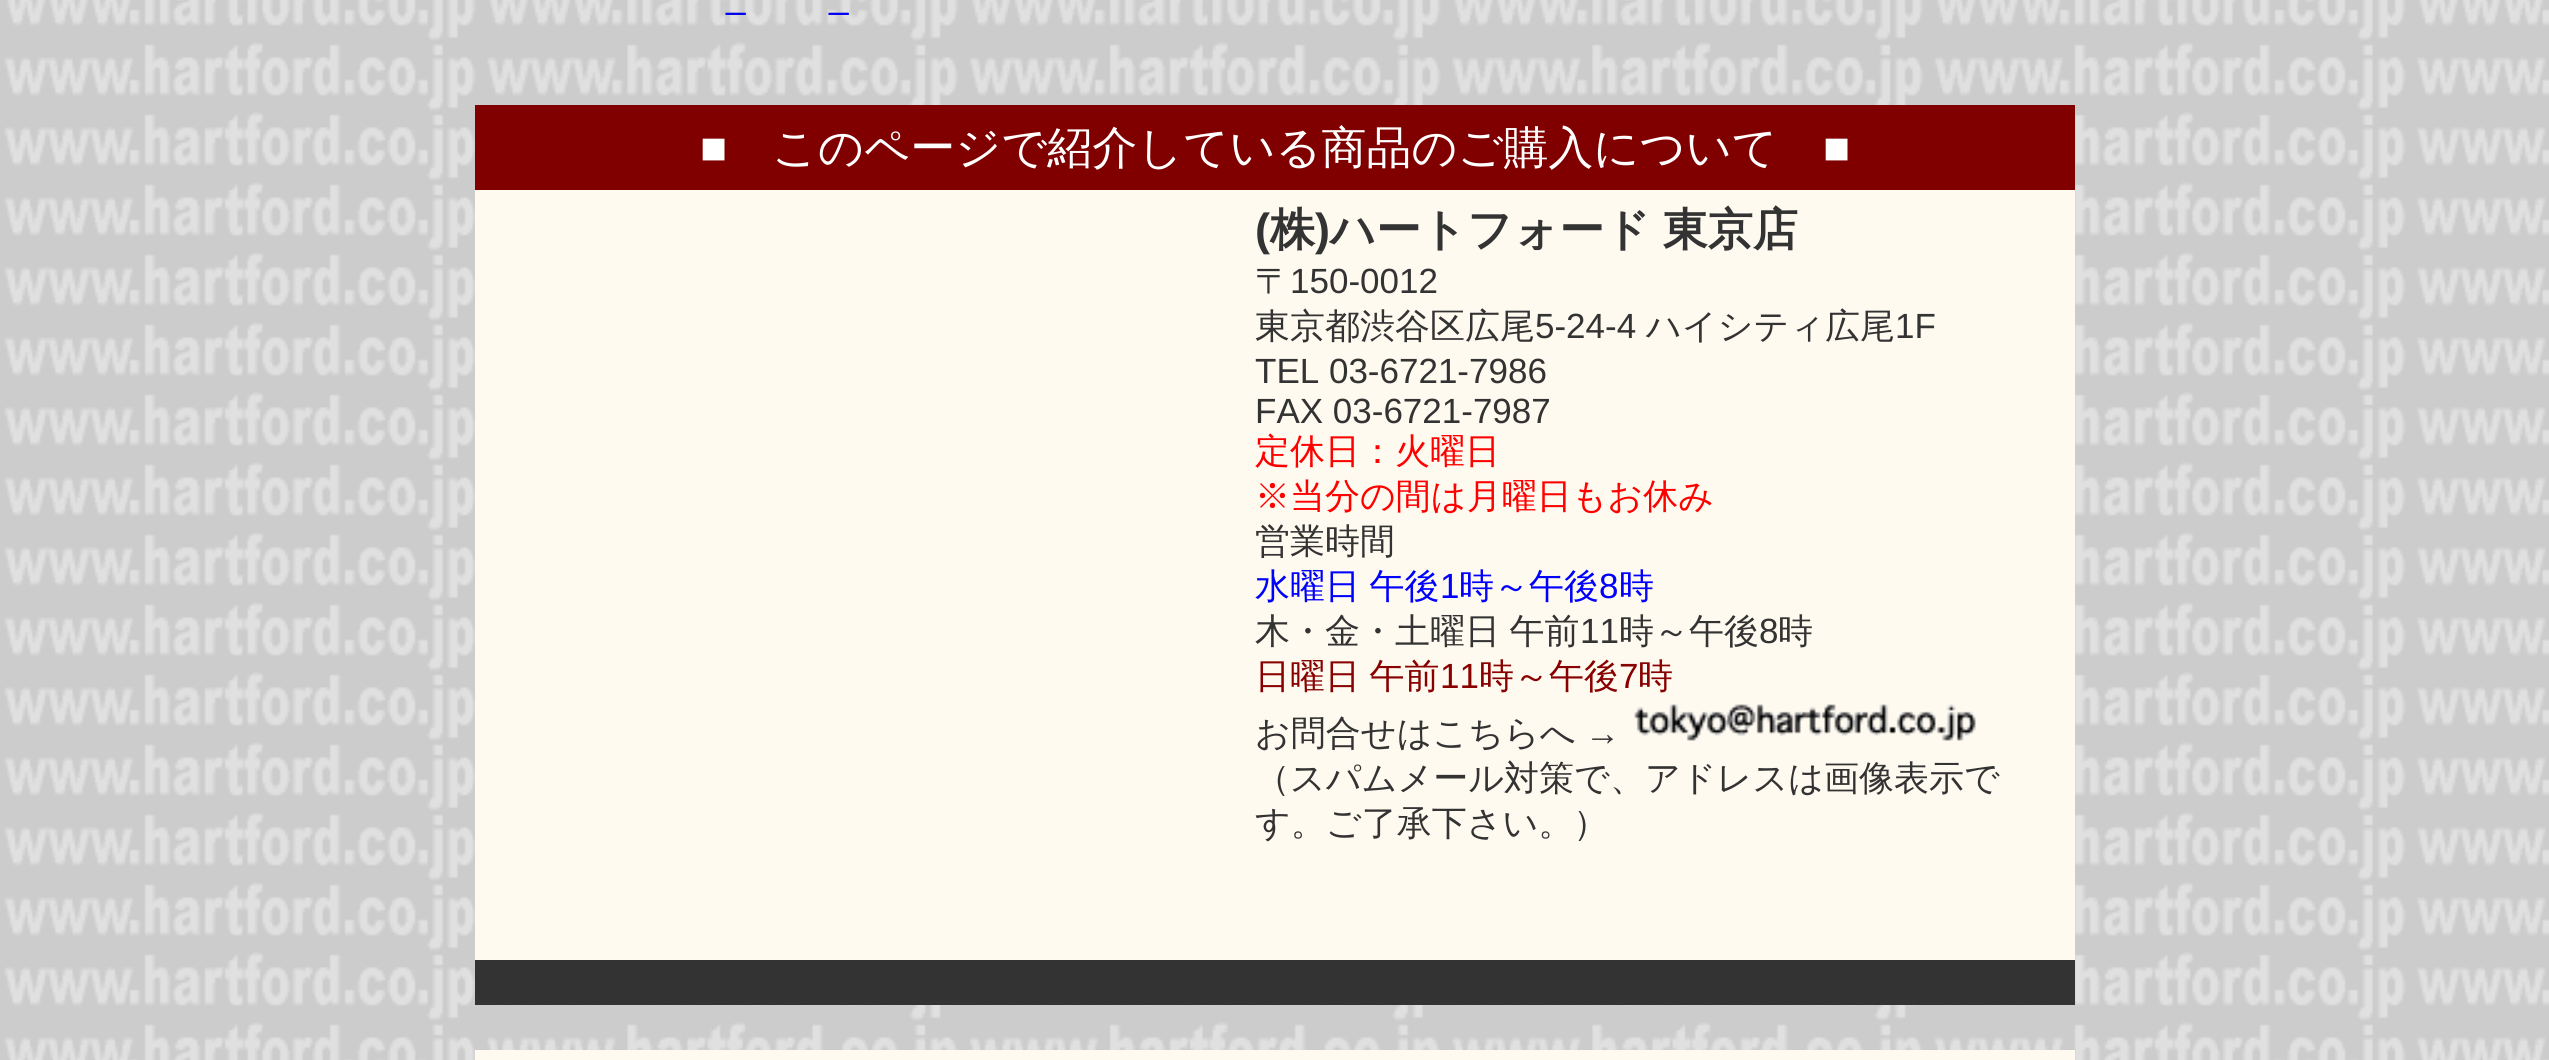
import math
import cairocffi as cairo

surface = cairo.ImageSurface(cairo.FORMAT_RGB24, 2549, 1060)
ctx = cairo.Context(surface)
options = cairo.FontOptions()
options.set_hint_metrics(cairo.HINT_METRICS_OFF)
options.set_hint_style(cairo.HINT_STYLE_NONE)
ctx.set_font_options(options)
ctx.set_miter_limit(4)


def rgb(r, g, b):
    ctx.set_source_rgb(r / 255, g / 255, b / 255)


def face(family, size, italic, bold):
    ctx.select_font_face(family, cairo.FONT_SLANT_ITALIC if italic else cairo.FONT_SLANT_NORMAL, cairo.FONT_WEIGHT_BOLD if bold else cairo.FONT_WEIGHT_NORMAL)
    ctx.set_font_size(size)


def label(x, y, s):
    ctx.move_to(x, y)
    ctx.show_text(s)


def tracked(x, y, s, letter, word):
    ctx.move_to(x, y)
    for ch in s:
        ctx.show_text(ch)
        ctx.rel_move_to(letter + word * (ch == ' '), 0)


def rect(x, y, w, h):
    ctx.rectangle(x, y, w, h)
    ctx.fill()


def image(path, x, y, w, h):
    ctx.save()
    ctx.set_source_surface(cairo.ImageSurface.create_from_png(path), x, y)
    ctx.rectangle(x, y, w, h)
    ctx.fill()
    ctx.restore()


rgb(255, 255, 255)
ctx.paint()
image('image0.png', 0, 0, 2549, 1060)
face('Liberation Sans', 35, 0, 0)
rgb(0, 0, 238)
label(726, 8, '_')
label(829, 8, '_')
rgb(128, 0, 0)
rect(475, 105, 1600, 85)
face('Liberation Sans', 45, 0, 0)
rgb(255, 255, 255)
label(700, 163, '■')
face('WenQuanYi Zen Hei Medium', 45, 0, 0)
label(772, 163, 'このページで紹介している商品のご購入について')
face('Liberation Sans', 45, 0, 0)
label(1823, 163, '■')
rgb(255, 250, 240)
rect(475, 190, 1600, 770)
face('Liberation Sans', 45, 0, 1)
rgb(51, 51, 51)
label(1255, 245, '(')
face('WenQuanYi Zen Hei', 45, 0, 1)
label(1270, 245, '株')
face('Liberation Sans', 45, 0, 1)
label(1315, 245, ')')
face('WenQuanYi Zen Hei', 45, 0, 1)
tracked(1330, 245, 'ハートフォード 東京店', 0, -1)
face('WenQuanYi Zen Hei Medium', 35, 0, 0)
label(1255, 293, '〒')
face('Liberation Sans', 35, 0, 0)
label(1290, 293, '150-0012')
face('WenQuanYi Zen Hei Medium', 35, 0, 0)
label(1255, 338, '東京都渋谷区広尾')
face('Liberation Sans', 35, 0, 0)
label(1535, 338, '5-24-4')
face('WenQuanYi Zen Hei Medium', 35, 0, 0)
label(1646, 338, 'ハイシティ広尾')
face('Liberation Sans', 35, 0, 0)
label(1895, 338, '1F')
label(1255, 383, 'TEL 03-6721-7986')
label(1255, 423, 'FAX 03-6721-7987')
face('WenQuanYi Zen Hei Medium', 35, 0, 0)
rgb(255, 0, 0)
label(1255, 463, '定休日：火曜日')
label(1255, 508, '※当分の間は月曜日もお休み')
rgb(51, 51, 51)
label(1255, 553, '営業時間')
rgb(0, 0, 255)
tracked(1255, 598, '水曜日 午後', 0, -1)
face('Liberation Sans', 35, 0, 0)
label(1440, 598, '1')
face('WenQuanYi Zen Hei Medium', 35, 0, 0)
label(1459, 598, '時～午後')
face('Liberation Sans', 35, 0, 0)
label(1599, 598, '8')
face('WenQuanYi Zen Hei Medium', 35, 0, 0)
label(1619, 598, '時')
rgb(51, 51, 51)
tracked(1255, 643, '木・金・土曜日 午前', 0, -1)
face('Liberation Sans', 35, 0, 0)
label(1580, 643, '11')
face('WenQuanYi Zen Hei Medium', 35, 0, 0)
label(1619, 643, '時～午後')
face('Liberation Sans', 35, 0, 0)
label(1759, 643, '8')
face('WenQuanYi Zen Hei Medium', 35, 0, 0)
label(1778, 643, '時')
rgb(136, 0, 0)
tracked(1255, 688, '日曜日 午前', 0, -1)
face('Liberation Sans', 35, 0, 0)
label(1440, 688, '11')
face('WenQuanYi Zen Hei Medium', 35, 0, 0)
label(1479, 688, '時～午後')
face('Liberation Sans', 35, 0, 0)
label(1619, 688, '7')
face('WenQuanYi Zen Hei Medium', 35, 0, 0)
label(1638, 688, '時')
rgb(51, 51, 51)
label(1255, 745, 'お問合せはこちらへ')
face('Liberation Sans', 35, 0, 0)
label(1585, 745, '→')
image('image1.png', 1634, 704, 342, 37)
face('WenQuanYi Zen Hei Medium', 35, 0, 0)
label(1255, 790, '（スパムメール対策で、アドレスは画像表示で')
label(1255, 835, 'す。ご了承下さい。）')
rect(475, 960, 1600, 45)
rgb(255, 250, 240)
rect(475, 1050, 1600, 10)
surface.write_to_png('render.png')
